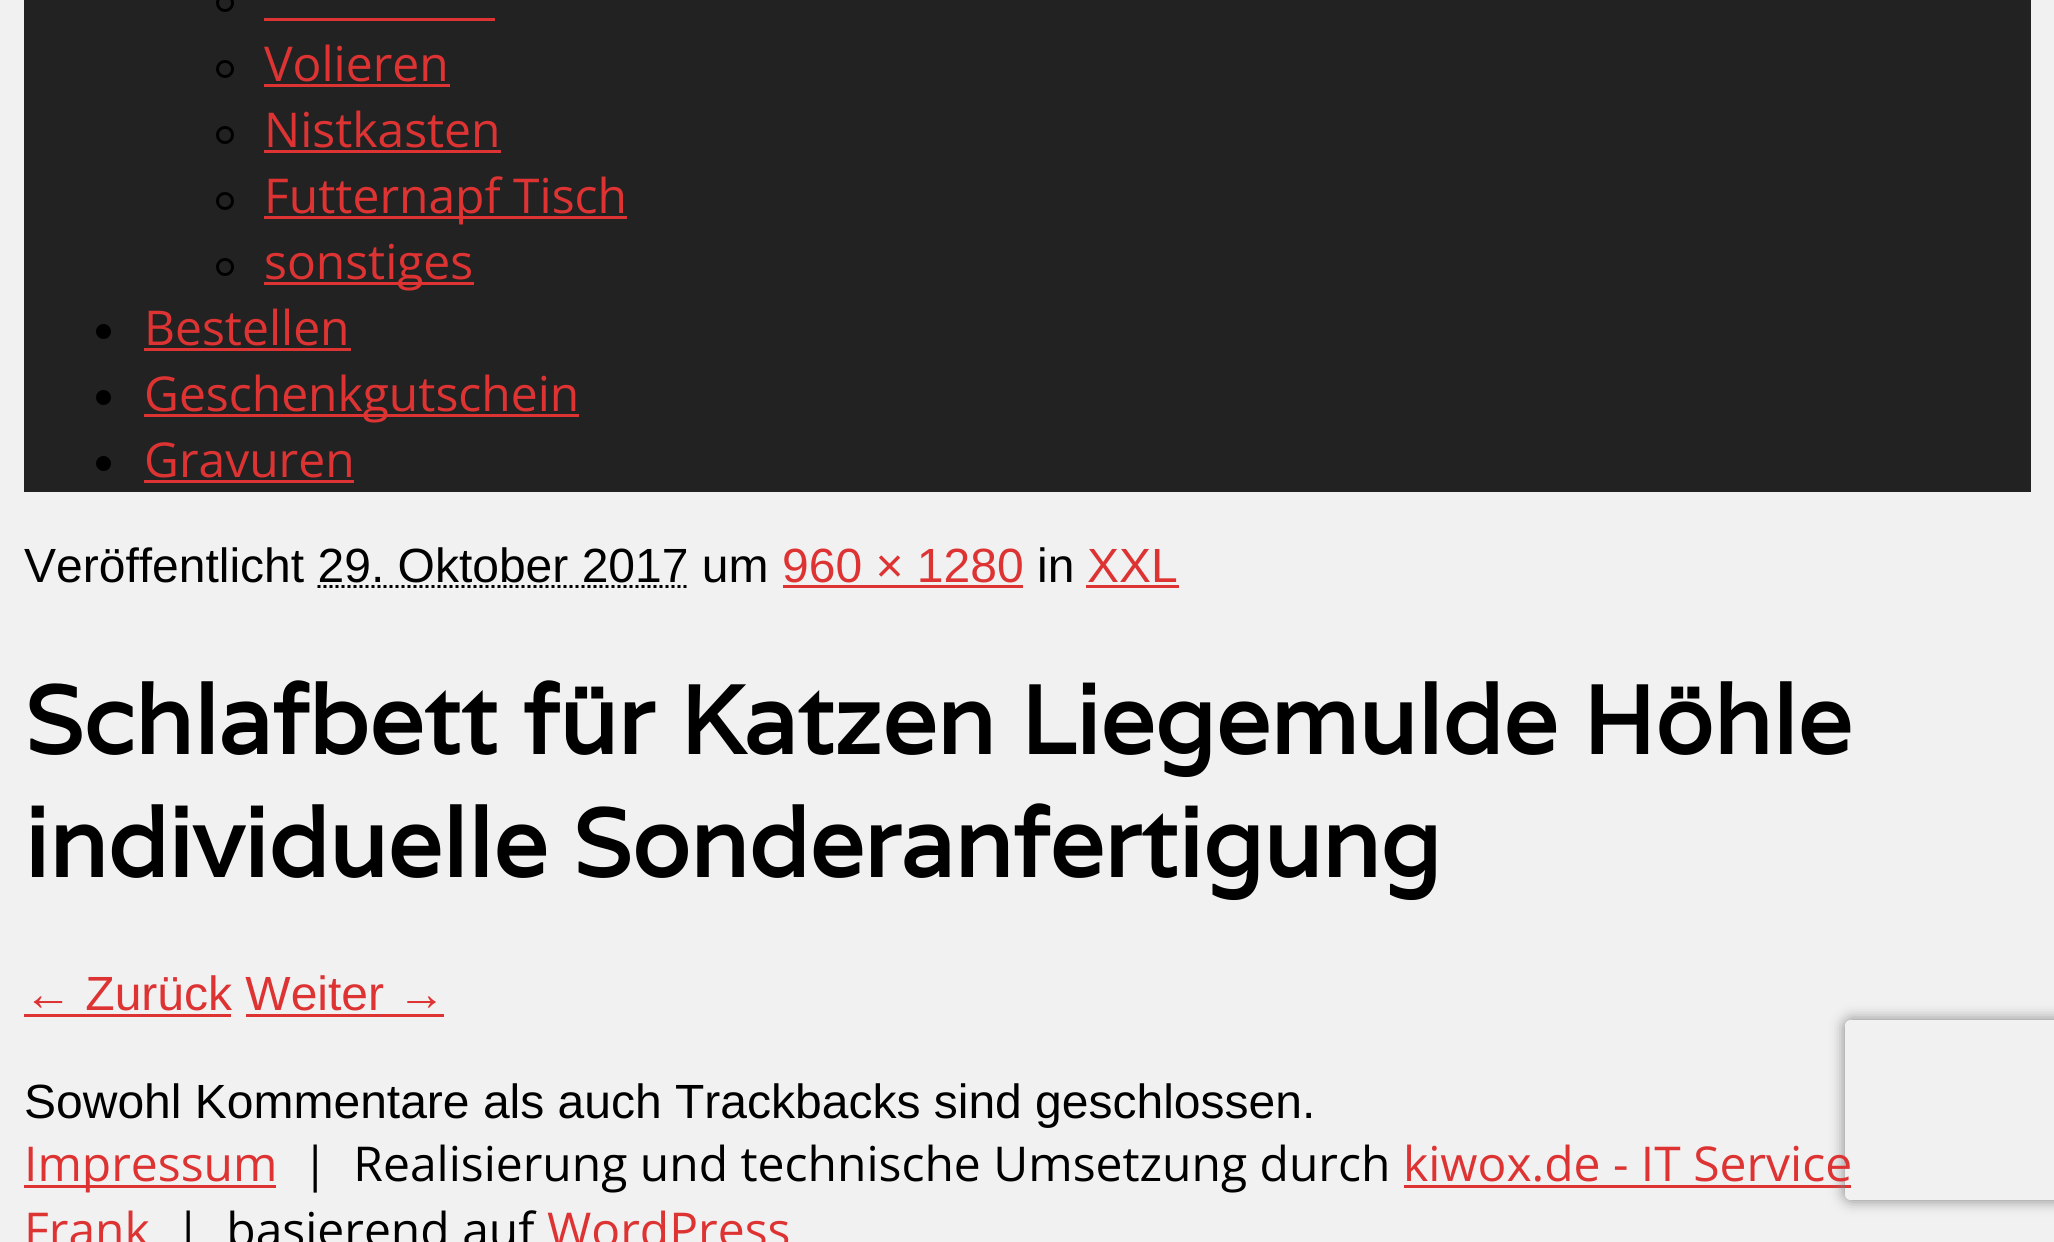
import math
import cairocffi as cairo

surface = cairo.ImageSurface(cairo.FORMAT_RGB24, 2054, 1242)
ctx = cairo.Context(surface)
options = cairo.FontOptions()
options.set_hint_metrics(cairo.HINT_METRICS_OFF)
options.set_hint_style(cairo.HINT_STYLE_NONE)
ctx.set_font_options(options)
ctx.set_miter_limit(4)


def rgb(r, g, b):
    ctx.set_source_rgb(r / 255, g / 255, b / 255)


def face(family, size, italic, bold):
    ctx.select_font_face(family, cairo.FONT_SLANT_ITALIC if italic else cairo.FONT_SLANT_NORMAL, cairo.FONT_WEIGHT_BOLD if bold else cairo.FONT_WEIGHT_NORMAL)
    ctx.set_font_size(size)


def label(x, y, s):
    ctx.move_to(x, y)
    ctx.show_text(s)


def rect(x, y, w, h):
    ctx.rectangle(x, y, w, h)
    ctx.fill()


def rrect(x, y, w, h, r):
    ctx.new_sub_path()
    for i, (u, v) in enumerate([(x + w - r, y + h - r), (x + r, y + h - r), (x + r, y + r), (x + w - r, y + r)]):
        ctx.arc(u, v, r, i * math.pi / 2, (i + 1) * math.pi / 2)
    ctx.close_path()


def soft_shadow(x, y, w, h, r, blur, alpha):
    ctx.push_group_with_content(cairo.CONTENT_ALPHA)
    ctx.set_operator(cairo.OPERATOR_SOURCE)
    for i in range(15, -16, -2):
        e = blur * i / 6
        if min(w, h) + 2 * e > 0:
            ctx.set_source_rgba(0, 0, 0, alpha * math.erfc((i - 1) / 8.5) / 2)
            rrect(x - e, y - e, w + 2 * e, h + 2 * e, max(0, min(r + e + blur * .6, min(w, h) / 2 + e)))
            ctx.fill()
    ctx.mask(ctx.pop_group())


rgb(241, 241, 241)
ctx.paint()
rgb(34, 34, 34)
rect(24, 0, 2007, 492)
ctx.arc(225, 3, 7.5, 0, 2 * math.pi)
rgb(0, 0, 0)
ctx.set_line_width(3)
ctx.stroke()
rgb(221, 51, 51)
rect(264, 18, 231, 3)
ctx.arc(225, 69, 7.5, 0, 2 * math.pi)
rgb(0, 0, 0)
ctx.stroke()
face('Open Sans', 48, 0, 0)
rgb(221, 51, 51)
label(264, 81, 'Volieren')
rect(264, 84, 186, 3)
ctx.new_path()
ctx.arc(225, 135, 7.5, 0, 2 * math.pi)
rgb(0, 0, 0)
ctx.stroke()
rgb(221, 51, 51)
label(264, 147, 'Nistkasten')
rect(264, 150, 237, 3)
ctx.new_path()
ctx.arc(225, 201, 7.5, 0, 2 * math.pi)
rgb(0, 0, 0)
ctx.stroke()
rgb(221, 51, 51)
rect(264, 216, 363, 3)
label(264, 213, 'Futternapf Tisch')
ctx.new_path()
ctx.arc(225, 267, 7.5, 0, 2 * math.pi)
rgb(0, 0, 0)
ctx.stroke()
rgb(221, 51, 51)
rect(264, 282, 210, 3)
label(264, 279, 'sonstiges')
rgb(0, 0, 0)
ctx.new_path()
ctx.arc(103.5, 331.5, 7.5, 0, 2 * math.pi)
ctx.fill()
rgb(221, 51, 51)
label(144, 345, 'Bestellen')
rect(144, 348, 207, 3)
rgb(0, 0, 0)
ctx.new_path()
ctx.arc(103.5, 397.5, 7.5, 0, 2 * math.pi)
ctx.fill()
rgb(221, 51, 51)
rect(144, 414, 435, 3)
label(144, 411, 'Geschenkgutschein')
rgb(0, 0, 0)
ctx.new_path()
ctx.arc(103.5, 463.5, 7.5, 0, 2 * math.pi)
ctx.fill()
rgb(221, 51, 51)
label(144, 477, 'Gravuren')
rect(144, 480, 210, 3)
face('Liberation Sans', 48, 0, 0)
rgb(0, 0, 0)
label(24, 582, 'Veröffentlicht 29. Oktober 2017 um')
rgb(221, 51, 51)
label(782, 582, '960 × 1280')
rect(783, 585, 240, 3)
rgb(0, 0, 0)
label(1037, 582, 'in')
rgb(221, 51, 51)
label(1087, 582, 'XXL')
rect(1086, 585, 93, 3)
ctx.new_path()
ctx.move_to(317.5, 586.5)
ctx.line_to(688.5, 586.5)
rgb(0, 0, 0)
ctx.set_dash([3, 3])
ctx.stroke()
face('Varela', 96, 0, 1)
label(24, 754, 'Schlafbett für Katzen Liegemulde Höhle')
label(24, 877, 'individuelle Sonderanfertigung')
face('Liberation Sans', 48, 0, 0)
rgb(221, 51, 51)
label(24, 1010, '← Zurück Weiter →')
rect(24, 1014, 207, 3)
rect(246, 1014, 198, 3)
rgb(0, 0, 0)
label(24, 1118, 'Sowohl Kommentare als auch Trackbacks sind geschlossen.')
rgb(221, 51, 51)
rect(1404, 1185, 447, 3)
ctx.save()
ctx.set_fill_rule(cairo.FILL_RULE_EVEN_ODD)
ctx.new_path()
ctx.move_to(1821, 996)
ctx.line_to(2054, 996)
ctx.line_to(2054, 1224)
ctx.line_to(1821, 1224)
ctx.close_path()
ctx.move_to(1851, 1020)
ctx.line_to(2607, 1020)
ctx.curve_to(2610.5, 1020, 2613, 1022.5, 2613, 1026)
ctx.line_to(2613, 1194)
ctx.curve_to(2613, 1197.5, 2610.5, 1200, 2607, 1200)
ctx.line_to(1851, 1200)
ctx.curve_to(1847.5, 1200, 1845, 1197.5, 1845, 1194)
ctx.line_to(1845, 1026)
ctx.curve_to(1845, 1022.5, 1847.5, 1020, 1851, 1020)
ctx.close_path()
ctx.clip()
rgb(128, 128, 128)
soft_shadow(1845, 1020, 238, 180, 6, 7.5, 1)
ctx.restore()
rect(24, 1185, 252, 3)
face('Open Sans', 48, 0, 0)
label(24, 1181, 'Impressum')
rgb(0, 0, 0)
label(302, 1181, '|  Realisierung und technische Umsetzung durch')
rgb(221, 51, 51)
label(1403, 1181, 'kiwox.de - IT Service')
label(24, 1247, 'Frank')
rgb(0, 0, 0)
label(175, 1247, '|  basierend auf')
rgb(221, 51, 51)
label(547, 1247, 'WordPress')
surface.write_to_png('render.png')
